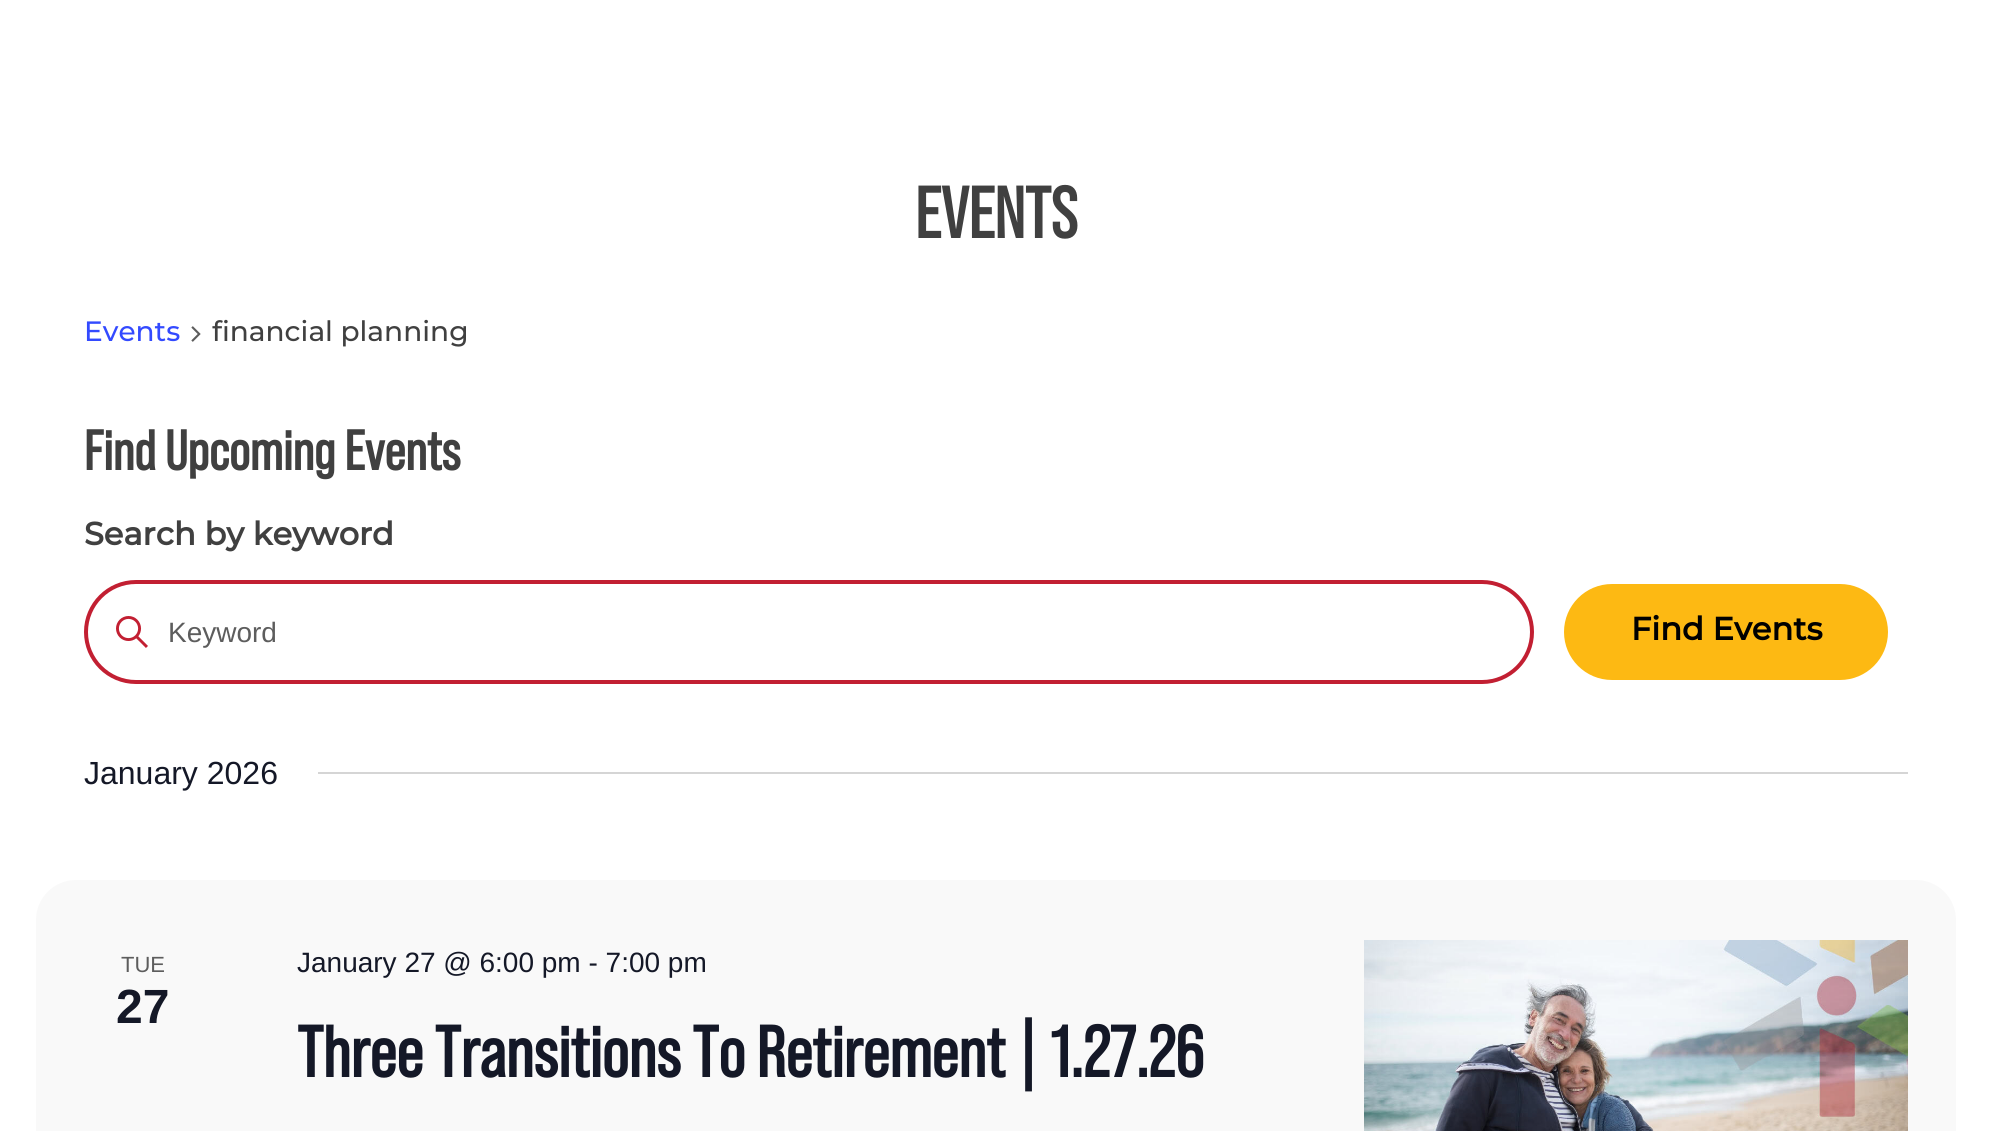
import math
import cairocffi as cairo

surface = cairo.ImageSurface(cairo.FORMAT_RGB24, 1992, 1131)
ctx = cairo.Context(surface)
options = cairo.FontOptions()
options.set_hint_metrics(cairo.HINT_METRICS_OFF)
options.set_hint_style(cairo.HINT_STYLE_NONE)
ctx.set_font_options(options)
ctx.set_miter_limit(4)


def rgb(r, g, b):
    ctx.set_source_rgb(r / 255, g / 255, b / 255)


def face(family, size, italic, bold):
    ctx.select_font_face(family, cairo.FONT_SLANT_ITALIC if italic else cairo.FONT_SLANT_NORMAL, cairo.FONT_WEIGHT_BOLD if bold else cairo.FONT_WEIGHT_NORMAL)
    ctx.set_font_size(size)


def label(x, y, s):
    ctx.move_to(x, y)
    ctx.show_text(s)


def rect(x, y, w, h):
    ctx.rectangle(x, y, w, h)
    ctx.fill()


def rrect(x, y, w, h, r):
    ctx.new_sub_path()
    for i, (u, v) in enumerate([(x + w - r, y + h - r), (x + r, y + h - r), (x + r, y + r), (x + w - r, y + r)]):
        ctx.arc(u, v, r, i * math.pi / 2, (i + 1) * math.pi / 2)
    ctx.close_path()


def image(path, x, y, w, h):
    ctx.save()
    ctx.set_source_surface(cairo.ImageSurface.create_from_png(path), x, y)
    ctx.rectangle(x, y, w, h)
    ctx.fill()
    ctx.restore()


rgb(255, 255, 255)
ctx.paint()
face('Bebas Neue', 72, 0, 1)
rgb(64, 64, 64)
label(915, 238, 'EVENTS')
face('Montserrat Medium', 28, 0, 0)
rgb(51, 74, 255)
label(84, 341, 'Events')
image('image0.png', 191, 326, 10, 16)
rgb(64, 64, 64)
label(212, 341, 'financial planning')
face('Bebas Neue', 56, 0, 1)
label(84, 470, 'Find Upcoming Events')
face('Montserrat', 32, 0, 1)
label(84, 545, 'Search by keyword')
rrect(86, 582, 1446, 100, 50)
rgb(194, 31, 50)
ctx.set_line_width(4)
ctx.stroke()
image('image1.png', 116, 616, 32, 32)
face('Liberation Sans', 28, 0, 0)
rgb(93, 93, 93)
label(168, 642, 'Keyword')
rgb(253, 185, 19)
rrect(1567, 587, 318, 90, 45)
ctx.fill_preserve()
ctx.set_line_width(6)
ctx.stroke()
face('Montserrat', 32, 0, 1)
rgb(0, 0, 0)
label(1631, 640, 'Find Events')
face('Liberation Sans', 32, 0, 0)
rgb(20, 24, 39)
label(84, 784, 'January 2026')
rgb(213, 213, 213)
rect(318, 772, 1590, 2)
rgb(249, 249, 249)
rrect(36, 880, 1920, 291, 40)
ctx.fill()
face('Liberation Sans', 22, 0, 0)
rgb(93, 93, 93)
label(121, 972, 'TUE')
face('Liberation Sans', 48, 0, 1)
rgb(20, 24, 39)
label(116, 1023, '27')
face('Liberation Sans', 28, 0, 0)
label(297, 972, 'January 27 @ 6:00 pm - 7:00 pm')
face('Bebas Neue', 72, 0, 1)
label(297, 1077, 'Three Transitions To Retirement | 1.27.26')
image('image2.png', 1364, 940, 544, 191)
surface.write_to_png('render.png')
